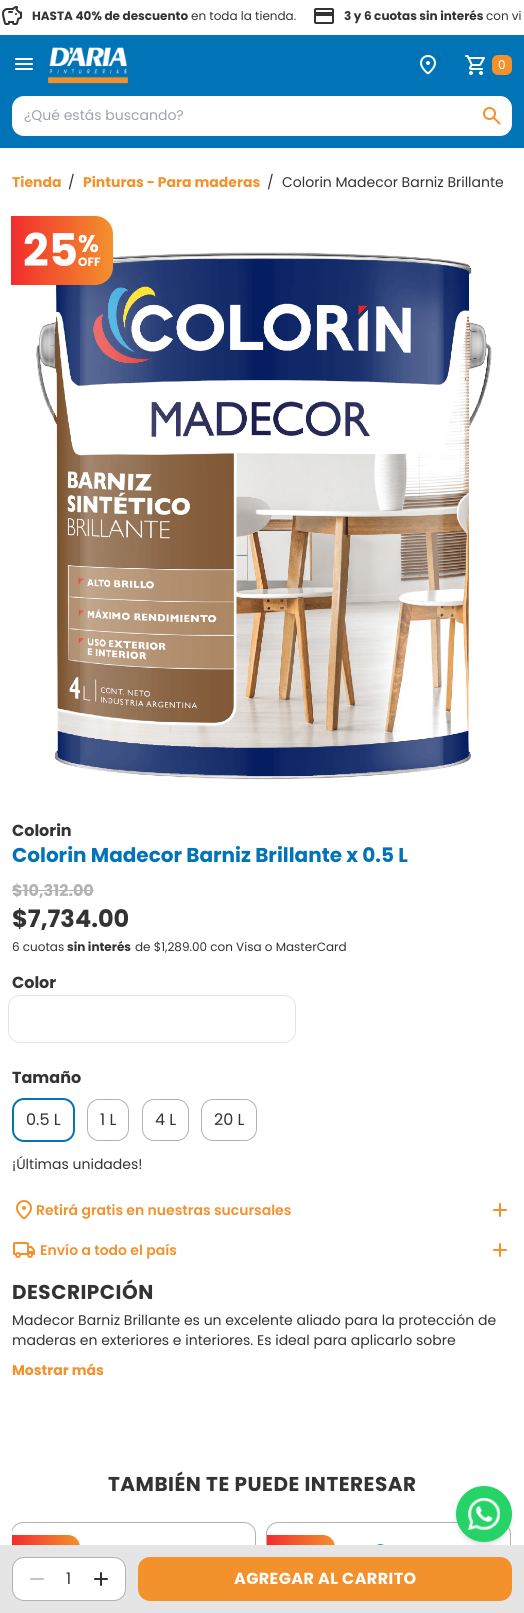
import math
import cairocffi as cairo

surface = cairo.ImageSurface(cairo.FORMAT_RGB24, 524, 1613)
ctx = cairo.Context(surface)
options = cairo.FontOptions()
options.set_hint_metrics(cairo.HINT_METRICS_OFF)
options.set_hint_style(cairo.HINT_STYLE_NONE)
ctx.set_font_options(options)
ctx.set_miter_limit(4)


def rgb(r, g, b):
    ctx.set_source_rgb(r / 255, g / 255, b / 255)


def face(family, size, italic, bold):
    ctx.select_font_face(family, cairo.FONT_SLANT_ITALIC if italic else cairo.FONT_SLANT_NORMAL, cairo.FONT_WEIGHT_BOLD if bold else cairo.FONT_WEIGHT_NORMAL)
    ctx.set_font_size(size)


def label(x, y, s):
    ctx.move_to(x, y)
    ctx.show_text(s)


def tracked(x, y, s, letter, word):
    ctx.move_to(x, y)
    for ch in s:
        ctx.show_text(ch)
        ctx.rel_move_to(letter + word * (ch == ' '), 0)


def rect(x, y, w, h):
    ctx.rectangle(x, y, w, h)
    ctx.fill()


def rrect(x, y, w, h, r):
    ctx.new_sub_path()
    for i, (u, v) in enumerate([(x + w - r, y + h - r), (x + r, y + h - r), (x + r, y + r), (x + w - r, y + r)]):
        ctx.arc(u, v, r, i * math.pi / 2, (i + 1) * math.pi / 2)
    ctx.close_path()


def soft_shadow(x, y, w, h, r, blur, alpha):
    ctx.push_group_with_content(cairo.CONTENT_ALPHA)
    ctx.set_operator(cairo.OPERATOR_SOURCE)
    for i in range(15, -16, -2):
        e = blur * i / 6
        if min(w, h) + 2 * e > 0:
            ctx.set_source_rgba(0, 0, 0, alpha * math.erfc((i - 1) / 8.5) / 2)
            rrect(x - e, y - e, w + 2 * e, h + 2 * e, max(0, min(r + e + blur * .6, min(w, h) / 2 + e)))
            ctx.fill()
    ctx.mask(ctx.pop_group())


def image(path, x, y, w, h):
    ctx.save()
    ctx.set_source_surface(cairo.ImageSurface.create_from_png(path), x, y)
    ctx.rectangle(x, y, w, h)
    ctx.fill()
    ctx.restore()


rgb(255, 255, 255)
ctx.paint()
image('image0.png', 2, 6, 20, 19)
face('Poppins', 12, 0, 1)
rgb(51, 51, 51)
label(32, 20, 'HASTA 40% de descuento')
face('Poppins', 12, 0, 0)
label(191, 20, 'en toda la tienda.')
image('image1.png', 314, 8, 20, 16)
face('Poppins', 12, 0, 1)
label(344, 20, '3 y 6 cuotas sin interés')
face('Poppins', 12, 0, 0)
label(486, 20, 'con vi')
rgb(1, 115, 183)
rect(0, 35, 524, 113)
image('image2.png', 15, 58, 18, 12)
image('image3.png', 48, 47, 80, 37)
image('image4.png', 420, 55, 16, 20)
image('image5.png', 465, 55, 20, 20)
rgb(243, 145, 45)
rrect(492, 55, 20, 20, 6)
ctx.fill()
rgb(255, 255, 255)
label(498, 69, '0')
rrect(12, 96, 500, 40, 12)
ctx.fill()
face('Poppins', 14, 0, 0)
rgb(156, 163, 175)
label(24, 120, '¿Qué estás buscando?')
image('image6.png', 483, 107, 18, 18)
face('Poppins', 14, 0, 1)
rgb(243, 145, 45)
label(12, 187, 'Tienda')
face('Poppins', 14, 0, 0)
rgb(51, 51, 51)
label(68, 187, '/')
face('Poppins', 14, 0, 1)
rgb(243, 145, 45)
label(83, 187, 'Pinturas - Para maderas')
face('Poppins', 14, 0, 0)
rgb(51, 51, 51)
label(267, 187, '/')
label(282, 187, 'Colorin Madecor Barniz Brillante')
image('image7.png', 35, 252, 457, 528)
gradient = cairo.LinearGradient(11, 251, 113, 251)
gradient.add_color_stop_rgba(0, 0.953, 0.176, 0.176, 1)
gradient.add_color_stop_rgba(1, 0.953, 0.569, 0.176, 1)
ctx.set_source(gradient)
ctx.new_path()
ctx.move_to(11, 216)
ctx.line_to(95, 216)
ctx.curve_to(105, 216, 113, 224, 113, 234)
ctx.line_to(113, 267)
ctx.curve_to(113, 277, 105, 285, 95, 285)
ctx.line_to(11, 285)
ctx.close_path()
ctx.fill()
face('Poppins', 45, 0, 1)
rgb(255, 255, 255)
label(23, 266, '25')
face('Poppins', 24, 0, 1)
label(78, 252, '%')
face('Poppins', 12, 0, 1)
label(78, 266, 'OFF')
face('Poppins', 16, 0, 1)
rgb(51, 51, 51)
label(12, 836, 'Colorin')
face('Poppins', 20, 0, 1)
rgb(1, 115, 183)
label(12, 862, 'Colorin Madecor Barniz Brillante x 0.5 L')
face('Poppins', 16, 0, 1)
rgb(178, 178, 178)
label(12, 896, '$10,312.00')
rect(12, 890, 82, 1)
face('Poppins', 24, 0, 1)
rgb(51, 51, 51)
label(12, 927, '$7,734.00')
face('Poppins', 12, 0, 0)
label(12, 951, '6 cuotas')
face('Poppins', 12, 0, 1)
label(67, 951, 'sin interés')
face('Poppins', 12, 0, 0)
label(135, 951, 'de $1,289.00 con Visa o MasterCard')
face('Poppins', 16, 0, 1)
label(12, 988, 'Color')
rrect(8.5, 995.5, 287, 47, 11.5)
rgb(229, 229, 229)
ctx.set_line_width(1)
ctx.stroke()
rgb(51, 51, 51)
label(12, 1083, 'Tamaño')
rrect(13, 1099, 61, 42, 11)
rgb(1, 115, 183)
ctx.set_line_width(2)
ctx.stroke()
face('Poppins', 16, 0, 0)
rgb(51, 51, 51)
label(26, 1125, '0.5 L')
rrect(87.5, 1099.5, 41, 41, 11.5)
rgb(178, 178, 178)
ctx.set_line_width(1)
ctx.stroke()
rgb(51, 51, 51)
label(100, 1125, '1 L')
rrect(142.5, 1099.5, 46, 41, 11.5)
rgb(178, 178, 178)
ctx.stroke()
rgb(51, 51, 51)
label(155, 1125, '4 L')
rrect(201.5, 1099.5, 55, 41, 11.5)
rgb(178, 178, 178)
ctx.stroke()
rgb(51, 51, 51)
label(214, 1125, '20 L')
face('Poppins', 14, 0, 0)
label(12, 1169, '¡Últimas unidades!')
image('image8.png', 16, 1200, 16, 20)
face('Poppins SemiBold', 14, 0, 0)
rgb(243, 145, 45)
label(36, 1215, 'Retirá gratis en nuestras sucursales')
image('image9.png', 493, 1203, 14, 14)
image('image10.png', 13, 1242, 22, 16)
label(40, 1255, 'Envío a todo el país')
image('image9.png', 493, 1243, 14, 14)
face('Poppins', 20, 0, 1)
rgb(51, 51, 51)
tracked(12, 1299, 'DESCRIPCIÓN', 0.5, 0)
face('Poppins', 14, 0, 0)
label(12, 1325, 'Madecor Barniz Brillante es un excelente aliado para la protección de')
label(12, 1345, 'maderas en exteriores e interiores. Es ideal para aplicarlo sobre')
face('Poppins', 14, 0, 1)
rgb(243, 145, 45)
label(12, 1375, 'Mostrar más')
ctx.save()
ctx.rectangle(12, 1522, 500, 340)
ctx.clip()
rrect(11.5, 1522.5, 244, 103, 11.5)
rgb(178, 178, 178)
ctx.stroke()
ctx.restore()
gradient = cairo.LinearGradient(12, 1558, 80, 1558)
gradient.add_color_stop_rgba(0, 0.953, 0.176, 0.176, 1)
gradient.add_color_stop_rgba(1, 0.953, 0.569, 0.176, 1)
ctx.set_source(gradient)
ctx.new_path()
ctx.move_to(12, 1535)
ctx.line_to(68, 1535)
ctx.curve_to(74.5, 1535, 80, 1540.5, 80, 1547)
ctx.line_to(80, 1569)
ctx.curve_to(80, 1575.5, 74.5, 1581, 68, 1581)
ctx.line_to(12, 1581)
ctx.close_path()
ctx.fill()
rrect(266.5, 1522.5, 244, 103, 11.5)
rgb(178, 178, 178)
ctx.stroke()
gradient = cairo.LinearGradient(267, 1558, 335, 1558)
gradient.add_color_stop_rgba(0, 0.953, 0.176, 0.176, 1)
gradient.add_color_stop_rgba(1, 0.953, 0.569, 0.176, 1)
ctx.set_source(gradient)
ctx.new_path()
ctx.move_to(267, 1535)
ctx.line_to(323, 1535)
ctx.curve_to(329.5, 1535, 335, 1540.5, 335, 1547)
ctx.line_to(335, 1569)
ctx.curve_to(335, 1575.5, 329.5, 1581, 323, 1581)
ctx.line_to(267, 1581)
ctx.close_path()
ctx.fill()
rgb(0, 0, 0)
soft_shadow(458, 1490, 52, 52, 26, 2, 0.1)
soft_shadow(457, 1491, 54, 54, 27, 3, 0.1)
rgb(229, 229, 229)
rect(0, 1545, 524, 68)
rgb(255, 255, 255)
rrect(12.5, 1557.5, 113, 43, 11.5)
ctx.fill_preserve()
rgb(178, 178, 178)
ctx.stroke()
image('image11.png', 30, 1578, 14, 2)
face('Poppins', 16, 0, 0)
rgb(51, 51, 51)
label(66, 1584, '1')
image('image12.png', 94, 1572, 14, 14)
rgb(243, 145, 45)
rrect(138, 1557, 374, 44, 12)
ctx.fill()
face('Poppins', 16, 0, 1)
rgb(255, 255, 255)
tracked(234, 1584, 'AGREGAR AL CARRITO', 0.4, 0)
face('Poppins', 20, 0, 1)
rgb(51, 51, 51)
tracked(108, 1491, 'TAMBIÉN TE PUEDE INTERESAR', 0.5, 0)
image('image13.png', 363, 1544, 25, 1)
rgb(37, 211, 102)
ctx.arc(484, 1514, 28, 0, 2 * math.pi)
ctx.fill()
image('image14.png', 468, 1498, 32, 32)
surface.write_to_png('render.png')
